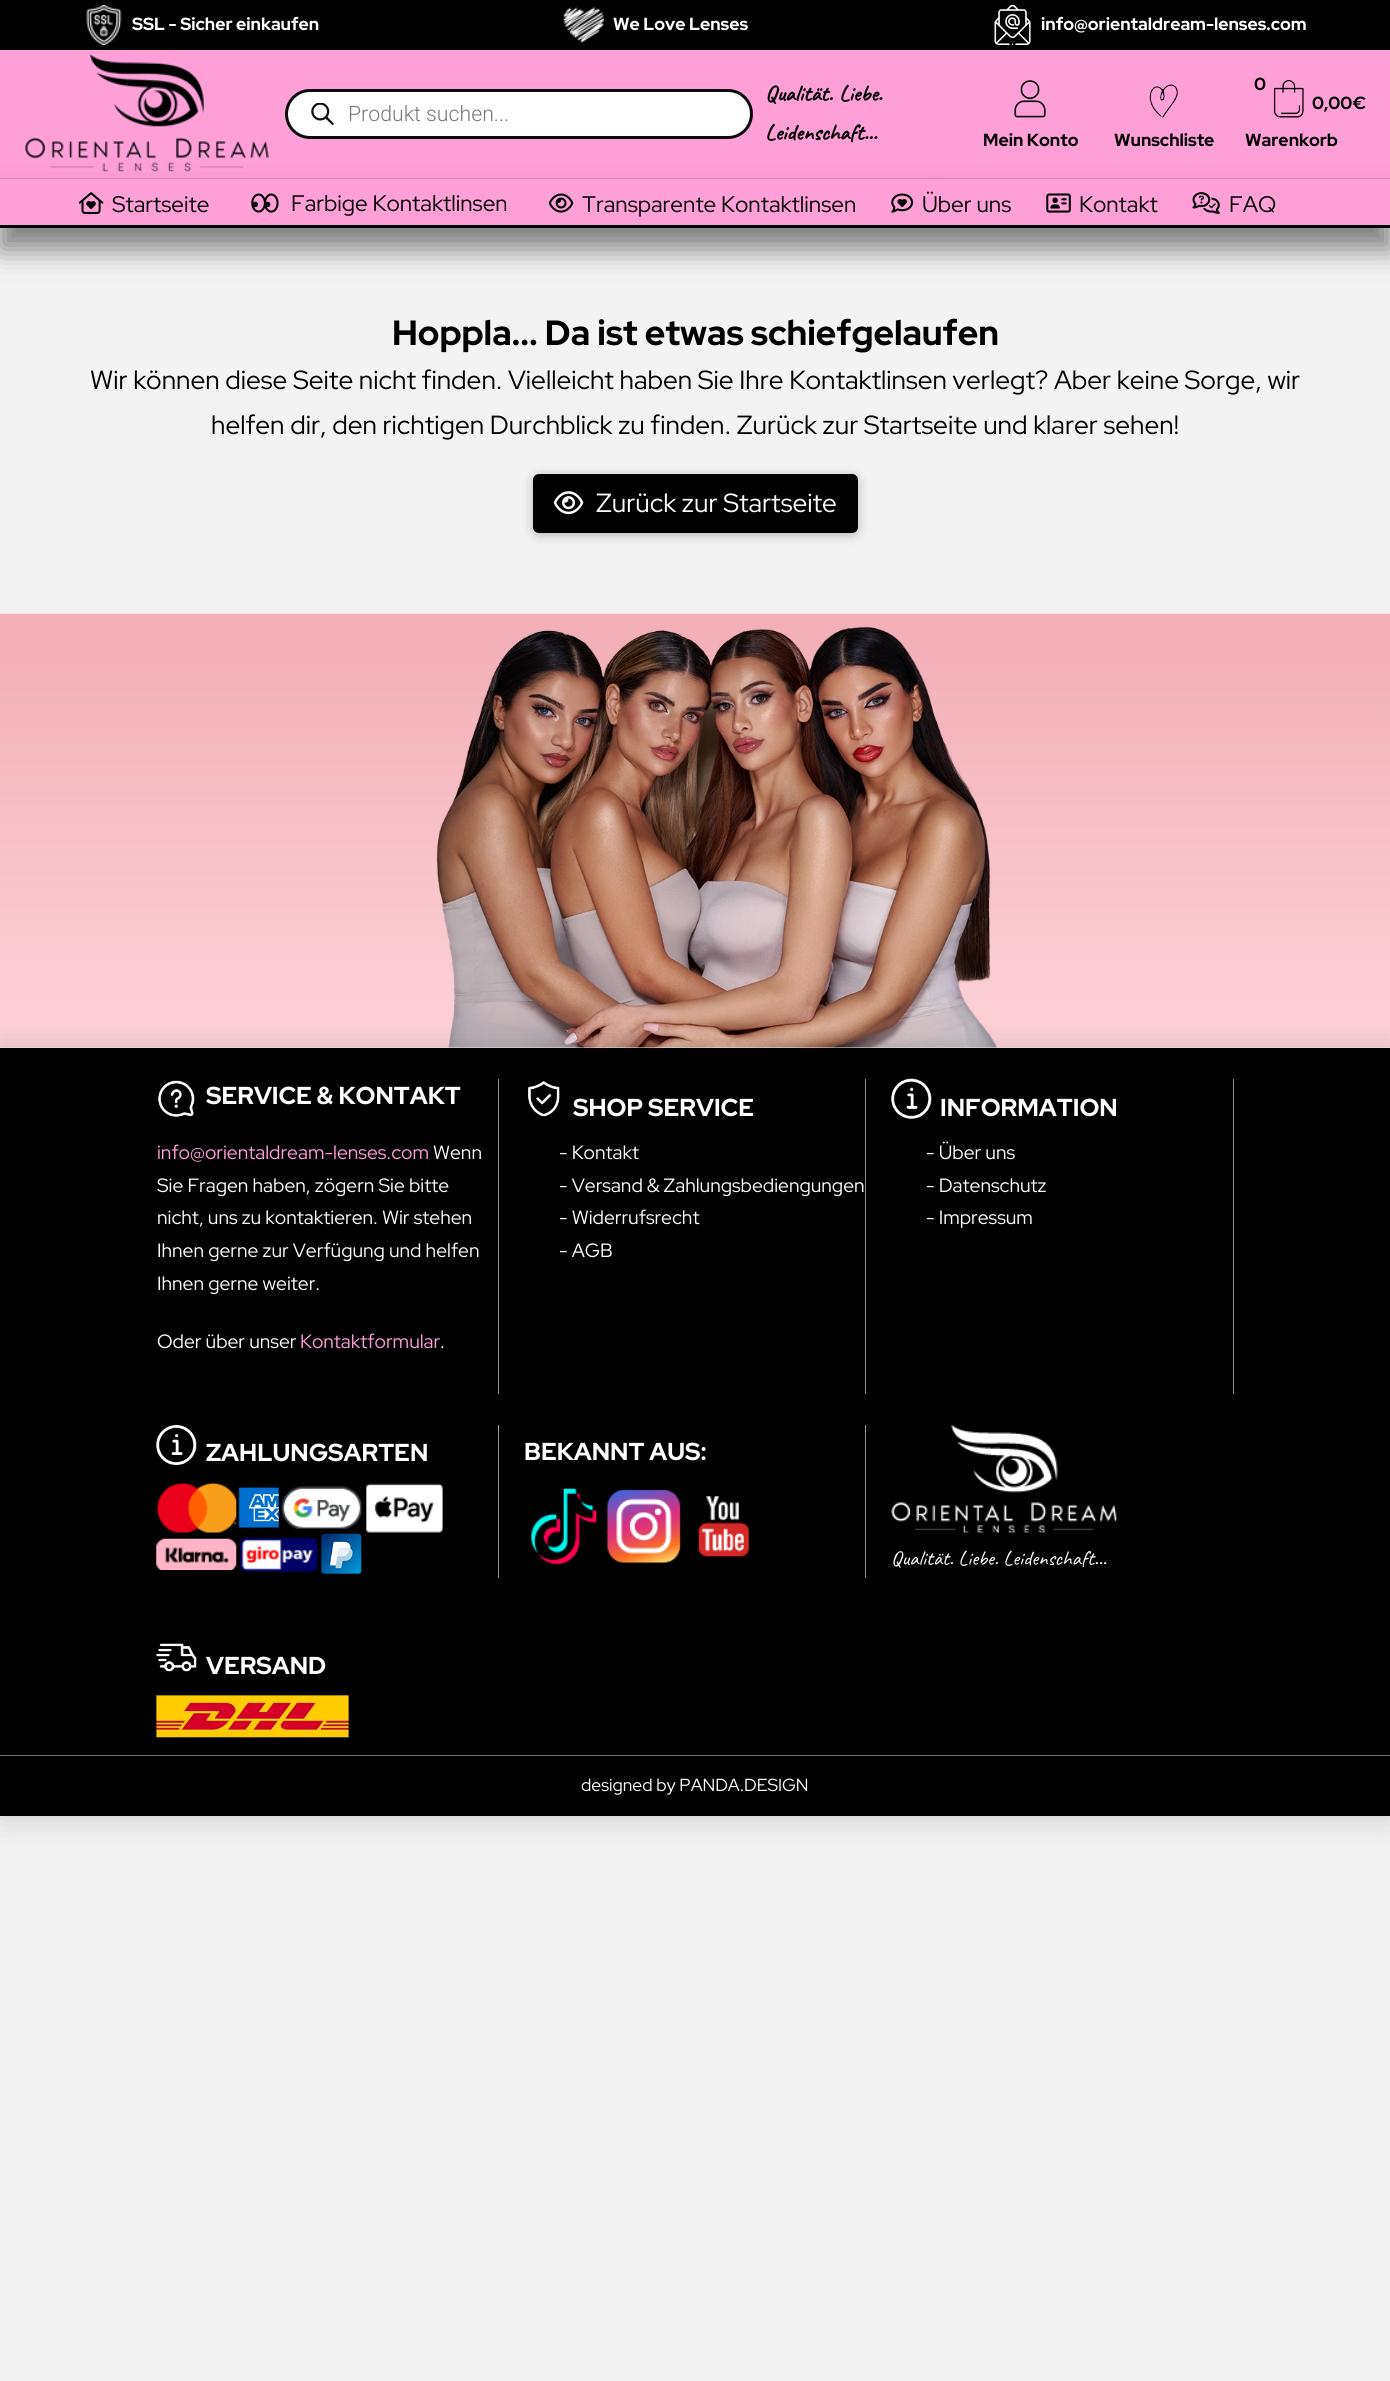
import math
import cairocffi as cairo

surface = cairo.ImageSurface(cairo.FORMAT_RGB24, 1390, 2381)
ctx = cairo.Context(surface)
options = cairo.FontOptions()
options.set_hint_metrics(cairo.HINT_METRICS_OFF)
options.set_hint_style(cairo.HINT_STYLE_NONE)
ctx.set_font_options(options)
ctx.set_miter_limit(4)


def rgb(r, g, b):
    ctx.set_source_rgb(r / 255, g / 255, b / 255)


def face(family, size, italic, bold):
    ctx.select_font_face(family, cairo.FONT_SLANT_ITALIC if italic else cairo.FONT_SLANT_NORMAL, cairo.FONT_WEIGHT_BOLD if bold else cairo.FONT_WEIGHT_NORMAL)
    ctx.set_font_size(size)


def label(x, y, s):
    ctx.move_to(x, y)
    ctx.show_text(s)


def tracked(x, y, s, letter, word):
    ctx.move_to(x, y)
    for ch in s:
        ctx.show_text(ch)
        ctx.rel_move_to(letter + word * (ch == ' '), 0)


def rect(x, y, w, h):
    ctx.rectangle(x, y, w, h)
    ctx.fill()


def rrect(x, y, w, h, r):
    ctx.new_sub_path()
    for i, (u, v) in enumerate([(x + w - r, y + h - r), (x + r, y + h - r), (x + r, y + r), (x + w - r, y + r)]):
        ctx.arc(u, v, r, i * math.pi / 2, (i + 1) * math.pi / 2)
    ctx.close_path()


def soft_shadow(x, y, w, h, r, blur, alpha):
    ctx.push_group_with_content(cairo.CONTENT_ALPHA)
    ctx.set_operator(cairo.OPERATOR_SOURCE)
    for i in range(15, -16, -2):
        e = blur * i / 6
        if min(w, h) + 2 * e > 0:
            ctx.set_source_rgba(0, 0, 0, alpha * math.erfc((i - 1) / 8.5) / 2)
            rrect(x - e, y - e, w + 2 * e, h + 2 * e, max(0, min(r + e + blur * .6, min(w, h) / 2 + e)))
            ctx.fill()
    ctx.mask(ctx.pop_group())


def image(path, x, y, w, h):
    ctx.save()
    ctx.set_source_surface(cairo.ImageSurface.create_from_png(path), x, y)
    ctx.rectangle(x, y, w, h)
    ctx.fill()
    ctx.restore()


rgb(243, 243, 243)
ctx.paint()
rgb(0, 0, 0)
rect(0, 0, 1390, 50)
image('image0.png', 86, 5, 36, 40)
face('Red Hat Display', 17.5, 0, 1)
rgb(255, 255, 255)
label(132, 30, 'SSL - Sicher einkaufen')
image('image1.png', 563, 7, 41, 36)
label(613, 30, 'We Love Lenses')
image('image2.png', 994, 5, 37, 40)
label(1041, 30, 'info@orientaldream-lenses.com')
rgb(255, 159, 216)
rect(0, 50, 1390, 128)
image('image3.png', 24, 53, 246, 119)
rgb(255, 255, 255)
rrect(286.5, 90.5, 465, 47, 23.5)
ctx.fill_preserve()
rgb(10, 10, 10)
ctx.set_line_width(3)
ctx.stroke()
image('image4.png', 311, 103, 23, 22)
face('Roboto Light', 21.25, 0, 0)
rgb(119, 119, 119)
label(348, 121, 'Produkt suchen...')
face('Caveat', 22.75, 0, 1)
rgb(0, 0, 0)
tracked(765, 101, 'Qualität. Liebe.', 0, 1)
label(765, 140, 'Leidenschaft...')
face('Red Hat Display', 17.5, 0, 1)
label(1254, 90, '0')
label(1312, 109, '0,00€')
image('image5.png', 1014, 80, 32, 38)
label(983, 146, 'Mein Konto')
image('image6.png', 1149, 84, 29, 34)
label(1114, 146, 'Wunschliste')
image('image7.png', 1273, 80, 31, 38)
label(1245, 146, 'Warenkorb')
rgb(0, 0, 0)
soft_shadow(0, 198, 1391, 51, 0, 14, 0.48)
rgb(255, 159, 216)
rect(0, 179, 1390, 46)
rgb(214, 134, 181)
rect(0, 178, 1390, 1)
rgb(0, 0, 0)
rect(0, 225, 1390, 3)
image('image8.png', 78, 192, 26, 22)
face('Red Hat Display', 22.5, 0, 0)
label(112, 212, 'Startseite')
image('image9.png', 251, 193, 28, 20)
label(291, 211, 'Farbige Kontaktlinsen')
image('image10.png', 548, 193, 26, 20)
label(582, 212, 'Transparente Kontaktlinsen')
image('image11.png', 891, 193, 23, 20)
label(922, 212, 'Über uns')
image('image12.png', 1046, 193, 25, 20)
label(1079, 212, 'Kontakt')
image('image13.png', 1192, 192, 28, 22)
label(1229, 212, 'FAQ')
face('Red Hat Display', 35, 0, 1)
label(392, 345, 'Hoppla... Da ist etwas schiefgelaufen')
face('Red Hat Display', 26.25, 0, 0)
label(90, 389, 'Wir können diese Seite nicht finden. Vielleicht haben Sie Ihre Kontaktlinsen verlegt? Aber keine Sorge, wir')
label(211, 434, 'helfen dir, den richtigen Durchblick zu finden. Zurück zur Startseite und klarer sehen!')
rgb(0, 0, 0)
soft_shadow(533, 476, 325, 59, 6, 5.5, 0.25)
rgb(0, 0, 0)
rrect(533, 474, 325, 59, 6)
ctx.fill()
image('image14.png', 553, 491, 31, 24)
rgb(255, 255, 255)
label(596, 512, 'Zurück zur Startseite')
image('image15.png', 0, 613, 1390, 435)
rgb(0, 0, 0)
soft_shadow(0, 1051, 1390, 708, 0, 15.5, 0.15)
rgb(0, 0, 0)
rect(0, 1048, 1390, 707)
rgb(148, 148, 148)
rect(498, 1079, 1, 315)
image('image16.png', 158, 1080, 37, 37)
face('Red Hat Display', 24.5, 0, 1)
rgb(255, 255, 255)
label(206, 1104, 'SERVICE & KONTAKT')
face('Red Hat Display', 19.25, 0, 0)
rgb(255, 159, 216)
label(157, 1159, 'info@orientaldream-lenses.com')
rgb(255, 255, 255)
label(433, 1159, 'Wenn')
label(157, 1192, 'Sie Fragen haben, zögern Sie bitte')
label(157, 1224, 'nicht, uns zu kontaktieren. Wir stehen')
label(157, 1257, 'Ihnen gerne zur Verfügung und helfen')
label(157, 1290, 'Ihnen gerne weiter.')
label(157, 1348, 'Oder über unser')
rgb(255, 159, 216)
label(300, 1348, 'Kontaktformular')
rgb(255, 255, 255)
label(440, 1348, '.')
rgb(148, 148, 148)
rect(865, 1079, 1, 315)
image('image17.png', 528, 1081, 32, 36)
face('Red Hat Display', 24.5, 0, 1)
rgb(255, 255, 255)
label(573, 1116, 'SHOP SERVICE')
face('Red Hat Display', 19.25, 0, 0)
label(559, 1159, '- Kontakt')
label(559, 1192, '- Versand & Zahlungsbediengungen')
label(559, 1224, '- Widerrufsrecht')
label(559, 1257, '- AGB')
rgb(148, 148, 148)
rect(1233, 1079, 1, 315)
image('image18.png', 891, 1078, 41, 41)
face('Red Hat Display', 24.5, 0, 1)
rgb(255, 255, 255)
label(940, 1116, 'INFORMATION')
face('Red Hat Display', 19.25, 0, 0)
label(926, 1159, '- Über uns')
label(926, 1192, '- Datenschutz')
label(926, 1224, '- Impressum')
rgb(148, 148, 148)
rect(498, 1425, 1, 153)
image('image19.png', 156, 1425, 41, 40)
face('Red Hat Display', 24.5, 0, 1)
rgb(255, 255, 255)
label(206, 1461, 'ZAHLUNGSARTEN')
image('image20.png', 157, 1482, 80, 51)
image('image21.png', 238, 1487, 41, 41)
image('image22.png', 281, 1486, 81, 43)
image('image23.png', 366, 1483, 77, 50)
image('image24.png', 156, 1538, 81, 32)
image('image25.png', 239, 1537, 79, 36)
image('image26.png', 321, 1533, 41, 41)
rgb(148, 148, 148)
rect(865, 1425, 1, 153)
rgb(255, 255, 255)
label(524, 1460, 'BEKANNT AUS:')
image('image27.png', 531, 1488, 66, 77)
image('image28.png', 606, 1489, 75, 75)
image('image29.png', 698, 1496, 51, 61)
image('image30.png', 891, 1425, 226, 108)
face('Caveat', 21, 0, 0)
label(891, 1565, 'Qualität. Liebe. Leidenschaft...')
image('image31.png', 156, 1643, 41, 29)
face('Red Hat Display', 24.5, 0, 1)
label(206, 1674, 'VERSAND')
image('image32.png', 156, 1695, 193, 43)
rgb(0, 0, 0)
soft_shadow(0, 1759, 1390, 61, 0, 15.5, 0.15)
rgb(0, 0, 0)
rect(0, 1756, 1390, 60)
rgb(115, 115, 115)
rect(0, 1755, 1390, 1)
face('Red Hat Display', 17.5, 0, 0)
rgb(255, 255, 255)
label(581, 1791, 'designed by PANDA.DESIGN')
surface.write_to_png('render.png')
